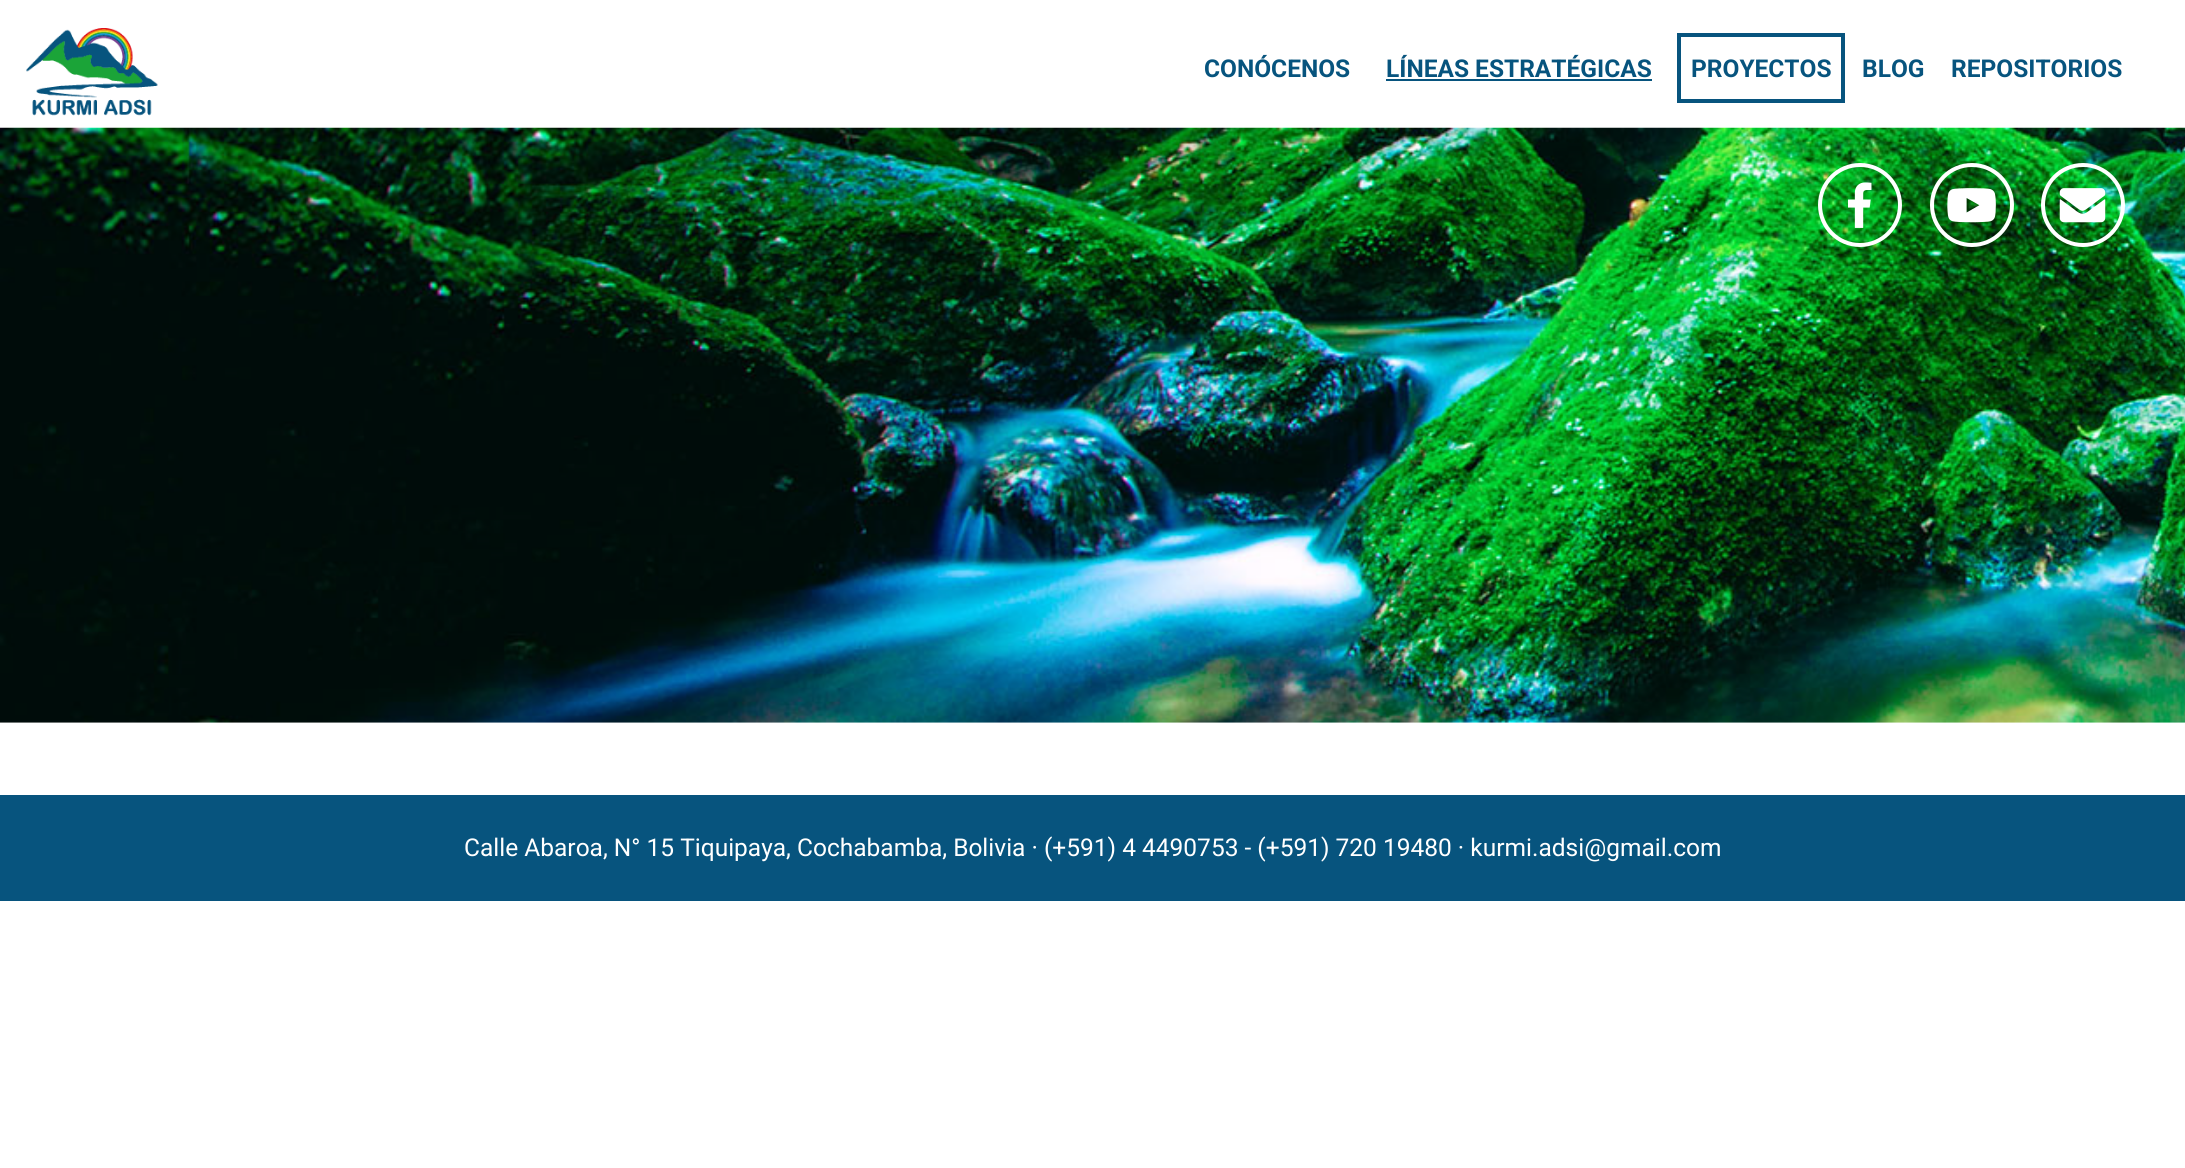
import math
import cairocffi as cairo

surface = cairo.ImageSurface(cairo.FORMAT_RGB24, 2185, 1168)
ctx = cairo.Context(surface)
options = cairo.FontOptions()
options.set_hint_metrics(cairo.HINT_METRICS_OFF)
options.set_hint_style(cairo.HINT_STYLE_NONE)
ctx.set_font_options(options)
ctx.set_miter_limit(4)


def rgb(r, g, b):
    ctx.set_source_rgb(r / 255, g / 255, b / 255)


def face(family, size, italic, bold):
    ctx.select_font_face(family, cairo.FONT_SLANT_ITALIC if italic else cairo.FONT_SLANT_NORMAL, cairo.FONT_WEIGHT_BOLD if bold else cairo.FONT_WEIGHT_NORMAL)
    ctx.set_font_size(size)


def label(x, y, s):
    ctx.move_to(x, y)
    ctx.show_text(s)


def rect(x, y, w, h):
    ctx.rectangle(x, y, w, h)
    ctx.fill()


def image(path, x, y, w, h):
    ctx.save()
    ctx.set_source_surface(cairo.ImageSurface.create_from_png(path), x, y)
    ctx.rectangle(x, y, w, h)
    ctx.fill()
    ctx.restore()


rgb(255, 255, 255)
ctx.paint()
image('image0.png', 26, 28, 132, 88)
face('Roboto', 24.5, 0, 1)
rgb(7, 84, 126)
label(1204, 77, 'CONÓCENOS')
label(1386, 77, 'LÍNEAS ESTRATÉGICAS')
rect(1386, 79, 266, 2)
ctx.rectangle(1679, 35, 164, 66)
ctx.set_line_width(4)
ctx.stroke()
label(1691, 77, 'PROYECTOS')
label(1862, 77, 'BLOG')
label(1951, 77, 'REPOSITORIOS')
image('image1.png', 0, 127, 2185, 596)
ctx.arc(1860, 205, 40, 0, 2 * math.pi)
rgb(255, 255, 255)
ctx.stroke()
image('image2.png', 1848, 182, 24, 46)
ctx.arc(1972, 205, 40, 0, 2 * math.pi)
ctx.stroke()
image('image3.png', 1947, 188, 49, 35)
ctx.arc(2083, 205, 40, 0, 2 * math.pi)
ctx.stroke()
image('image4.png', 2059, 188, 47, 35)
rgb(7, 84, 126)
rect(0, 795, 2185, 106)
face('Roboto', 24.5, 0, 0)
rgb(255, 255, 255)
label(464, 856, 'Calle Abaroa, N° 15 Tiquipaya, Cochabamba, Bolivia · (+591) 4 4490753 - (+591) 720 19480 · kurmi.adsi@gmail.com')
surface.write_to_png('render.png')
